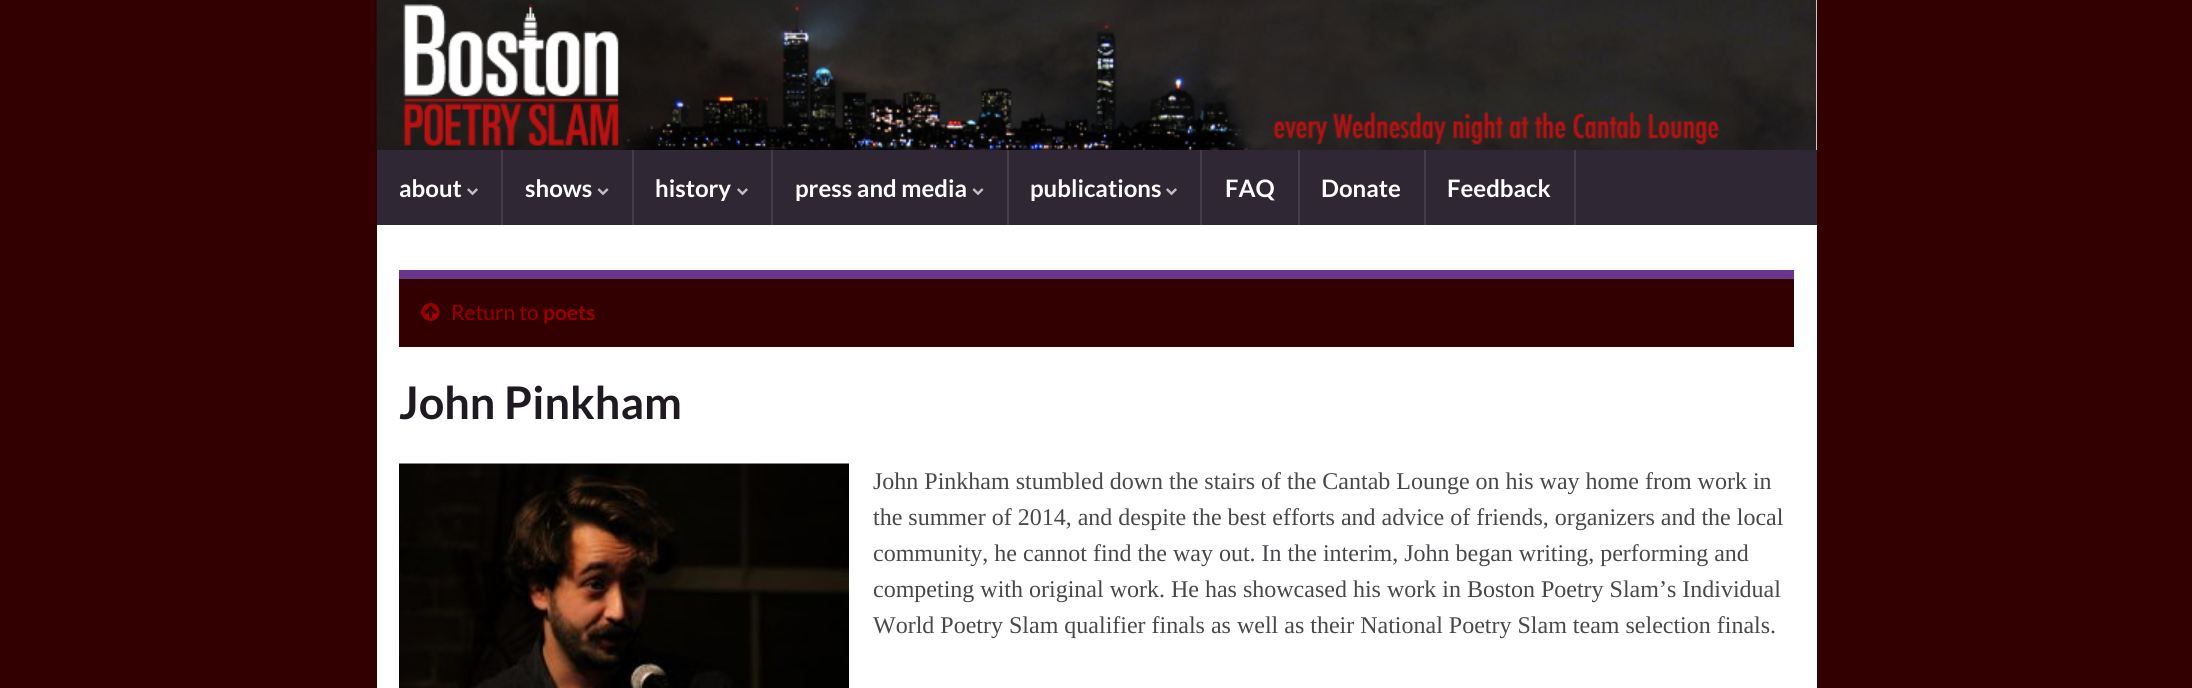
import math
import cairocffi as cairo

surface = cairo.ImageSurface(cairo.FORMAT_RGB24, 2192, 688)
ctx = cairo.Context(surface)
options = cairo.FontOptions()
options.set_hint_metrics(cairo.HINT_METRICS_OFF)
options.set_hint_style(cairo.HINT_STYLE_NONE)
ctx.set_font_options(options)
ctx.set_miter_limit(4)


def rgb(r, g, b):
    ctx.set_source_rgb(r / 255, g / 255, b / 255)


def face(family, size, italic, bold):
    ctx.select_font_face(family, cairo.FONT_SLANT_ITALIC if italic else cairo.FONT_SLANT_NORMAL, cairo.FONT_WEIGHT_BOLD if bold else cairo.FONT_WEIGHT_NORMAL)
    ctx.set_font_size(size)


def label(x, y, s):
    ctx.move_to(x, y)
    ctx.show_text(s)


def rect(x, y, w, h):
    ctx.rectangle(x, y, w, h)
    ctx.fill()


def image(path, x, y, w, h):
    ctx.save()
    ctx.set_source_surface(cairo.ImageSurface.create_from_png(path), x, y)
    ctx.rectangle(x, y, w, h)
    ctx.fill()
    ctx.restore()


rgb(51, 0, 0)
ctx.paint()
rgb(255, 255, 255)
rect(1816, 0, 1, 150)
image('image0.png', 376, 0, 1441, 150)
rgb(47, 39, 51)
rect(377, 150, 1440, 75)
rgb(68, 61, 71)
rect(501, 150, 2, 75)
face('Lato', 24, 0, 1)
rgb(255, 255, 255)
label(399, 197, 'about')
image('image1.png', 467, 188, 11, 8)
rgb(68, 61, 71)
rect(632, 150, 2, 75)
rgb(255, 255, 255)
label(525, 197, 'shows')
image('image2.png', 597, 188, 12, 8)
rgb(68, 61, 71)
rect(771, 150, 2, 75)
rgb(255, 255, 255)
label(655, 197, 'history')
image('image1.png', 737, 188, 11, 8)
rgb(68, 61, 71)
rect(1007, 150, 2, 75)
rgb(255, 255, 255)
label(795, 197, 'press and media')
image('image2.png', 972, 188, 12, 8)
rgb(68, 61, 71)
rect(1200, 150, 2, 75)
rgb(255, 255, 255)
label(1030, 197, 'publications')
image('image1.png', 1166, 188, 11, 8)
rgb(68, 61, 71)
rect(1298, 150, 2, 75)
rgb(255, 255, 255)
label(1225, 197, 'FAQ')
rgb(68, 61, 71)
rect(1424, 150, 2, 75)
rgb(255, 255, 255)
label(1321, 197, 'Donate')
rgb(68, 61, 71)
rect(1574, 150, 2, 75)
rgb(255, 255, 255)
label(1447, 197, 'Feedback')
rect(377, 225, 1440, 463)
rgb(51, 0, 0)
rect(399, 279, 1395, 68)
rgb(107, 53, 137)
rect(399, 270, 1395, 9)
image('image3.png', 421, 303, 19, 18)
face('Lato', 21, 0, 0)
rgb(153, 0, 0)
label(451, 320, 'Return to')
face('Lato', 21, 0, 1)
label(543, 320, 'poets')
face('Lato', 45, 0, 1)
rgb(31, 26, 34)
label(399, 419, 'John Pinkham')
image('image4.png', 399, 463, 450, 225)
face('Liberation Serif', 24, 0, 0)
rgb(74, 71, 75)
label(873, 489, 'John Pinkham stumbled down the stairs of the Cantab Lounge on his way home from work in')
label(873, 525, 'the summer of 2014, and despite the best efforts and advice of friends, organizers and the local')
label(873, 561, 'community, he cannot find the way out. In the interim, John began writing, performing and')
label(873, 597, 'competing with original work. He has showcased his work in Boston Poetry Slam’s Individual')
label(873, 633, 'World Poetry Slam qualifier finals as well as their National Poetry Slam team selection finals.')
surface.write_to_png('render.png')
